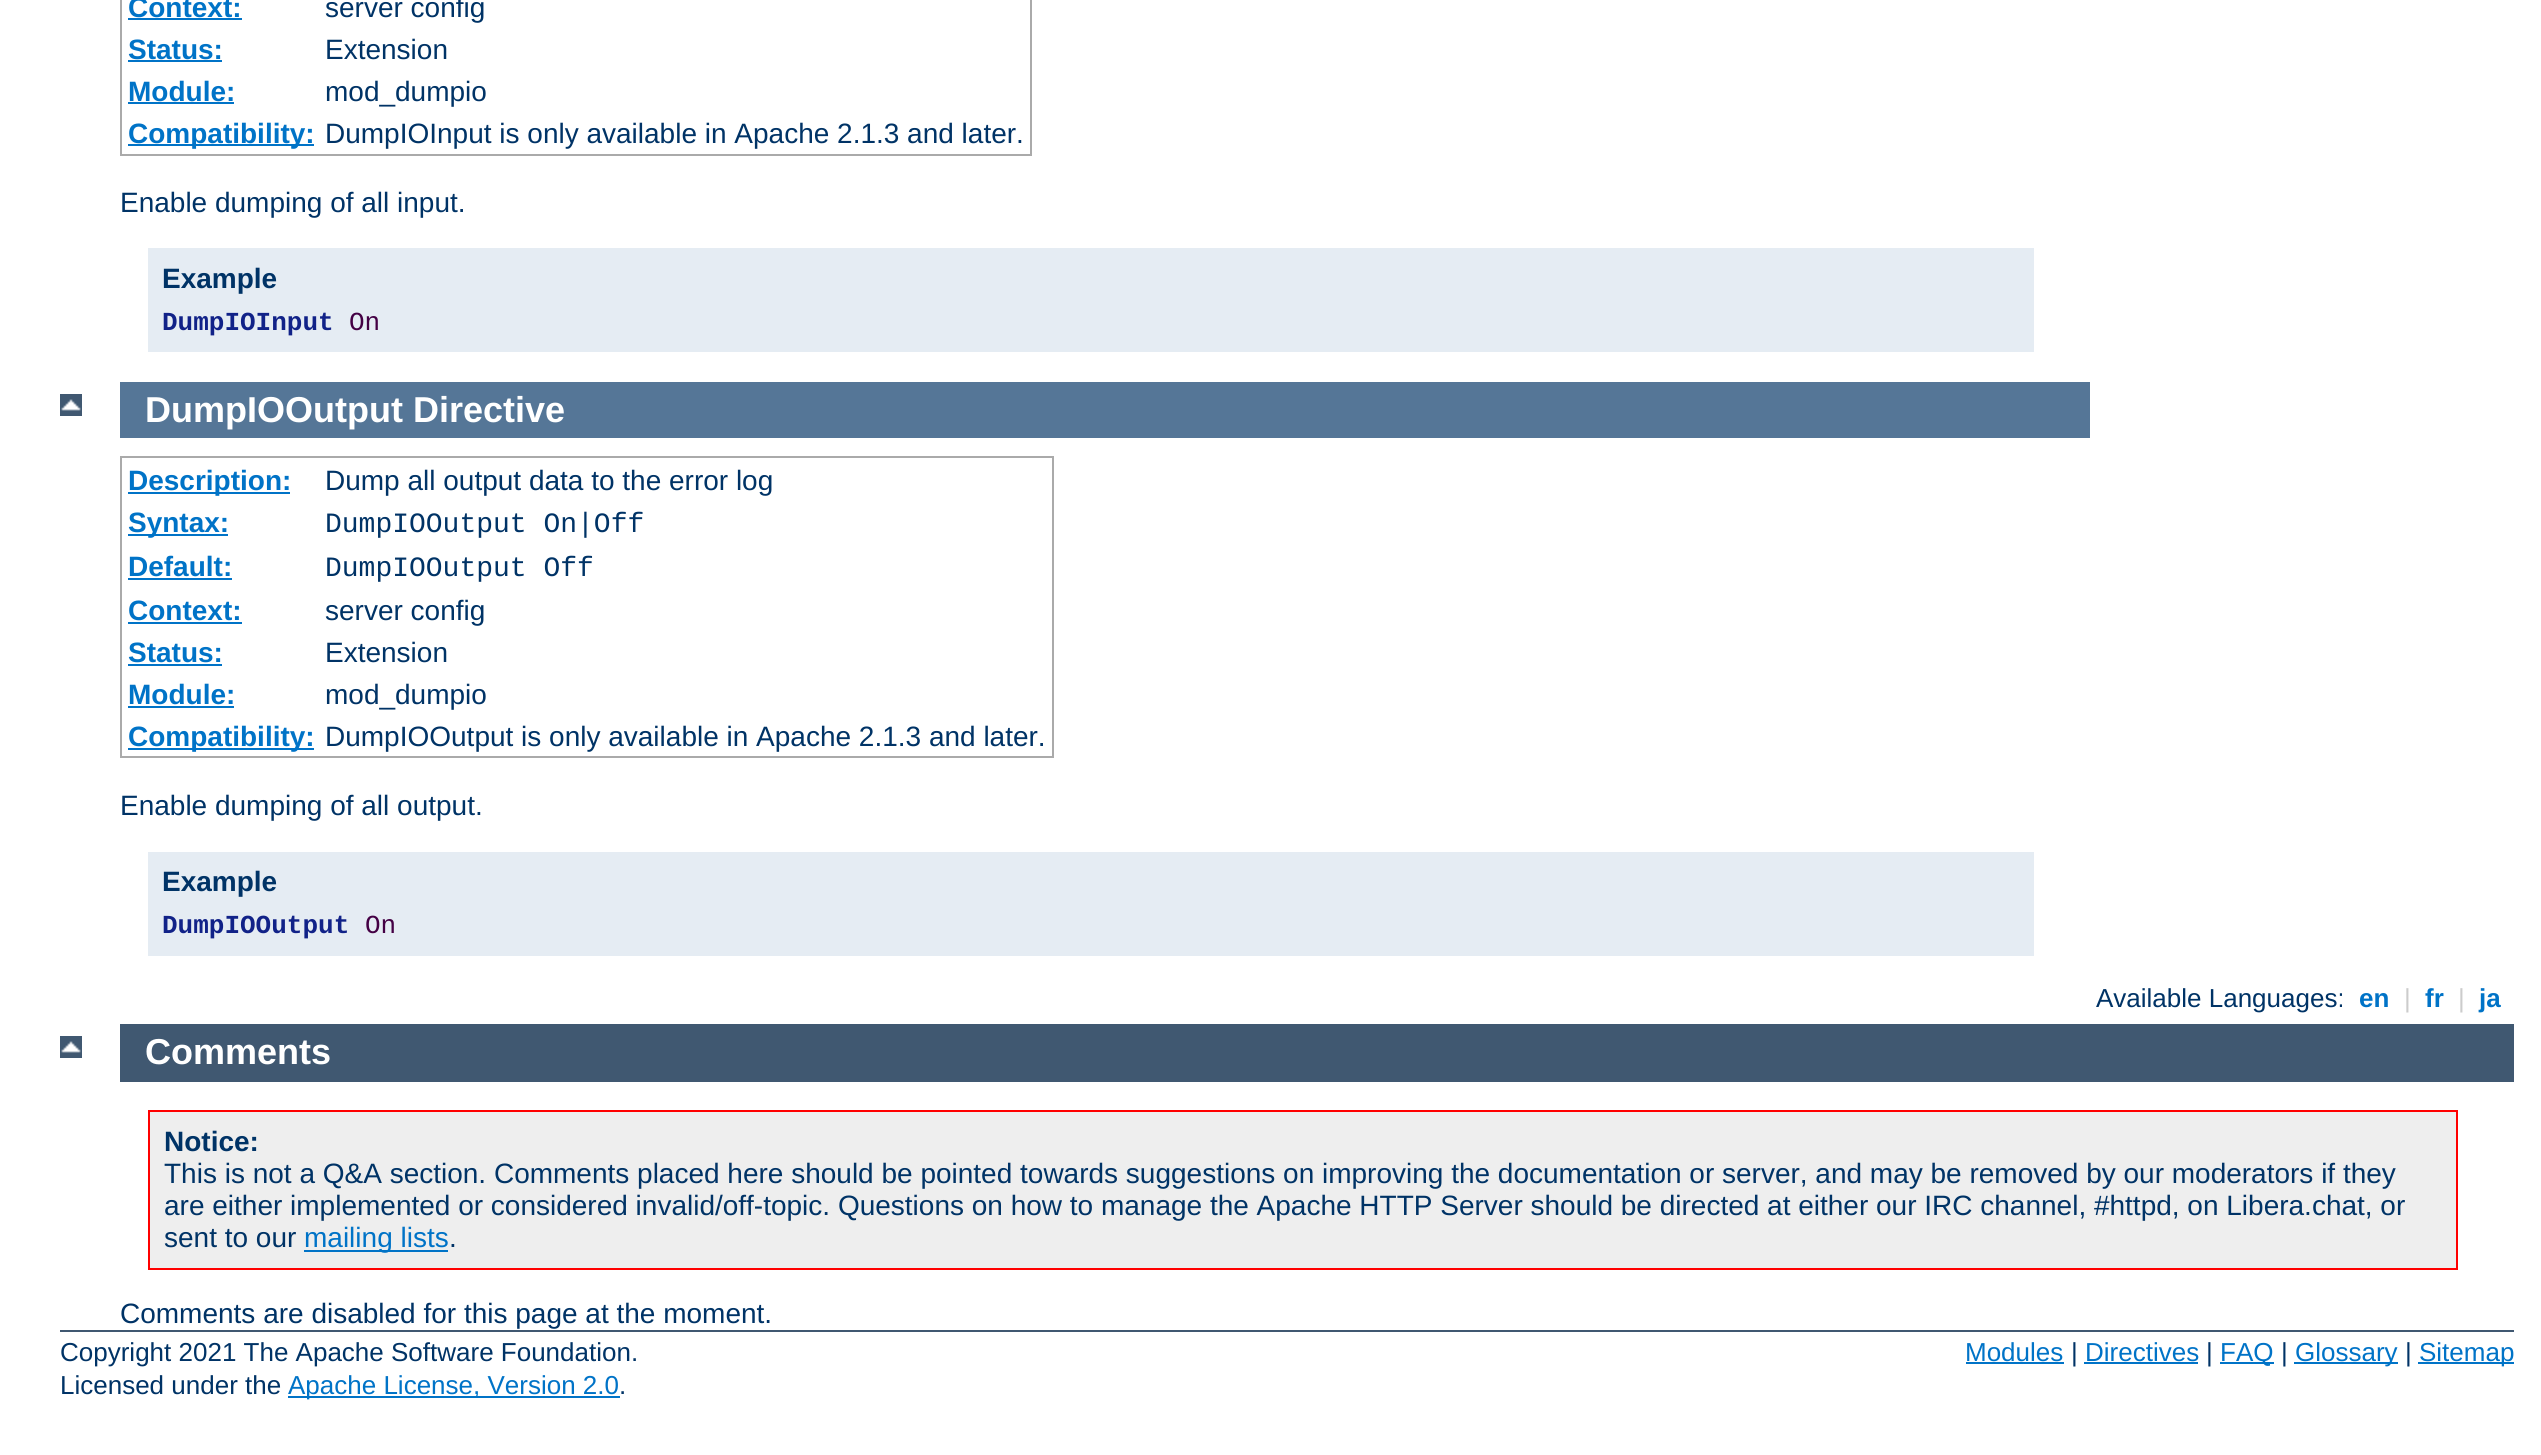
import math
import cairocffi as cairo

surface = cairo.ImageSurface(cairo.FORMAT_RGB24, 2541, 1455)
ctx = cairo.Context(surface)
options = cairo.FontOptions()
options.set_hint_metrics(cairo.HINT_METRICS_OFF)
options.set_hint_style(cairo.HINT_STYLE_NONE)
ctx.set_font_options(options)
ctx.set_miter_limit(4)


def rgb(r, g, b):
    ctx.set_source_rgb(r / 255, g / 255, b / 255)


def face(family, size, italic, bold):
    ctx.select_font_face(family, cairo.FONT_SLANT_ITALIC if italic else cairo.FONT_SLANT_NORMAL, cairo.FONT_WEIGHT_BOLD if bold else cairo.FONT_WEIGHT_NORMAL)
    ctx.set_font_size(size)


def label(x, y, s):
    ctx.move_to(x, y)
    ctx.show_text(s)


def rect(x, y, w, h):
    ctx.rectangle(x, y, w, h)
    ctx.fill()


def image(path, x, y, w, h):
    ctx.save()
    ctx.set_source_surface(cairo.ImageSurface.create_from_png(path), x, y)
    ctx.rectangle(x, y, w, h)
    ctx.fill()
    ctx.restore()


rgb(255, 255, 255)
ctx.paint()
rgb(170, 170, 170)
rect(1030, 0, 2, 156)
rect(120, 154, 912, 2)
rect(120, 0, 2, 156)
face('Liberation Sans', 28, 0, 1)
rgb(0, 115, 199)
label(128, 17, 'Context:')
rect(128, 18, 114, 2)
face('Liberation Sans', 28, 0, 0)
rgb(0, 51, 102)
label(325, 17, 'server config')
face('Liberation Sans', 28, 0, 1)
rgb(0, 115, 199)
label(128, 59, 'Status:')
rect(128, 60, 94, 2)
face('Liberation Sans', 28, 0, 0)
rgb(0, 51, 102)
label(325, 59, 'Extension')
face('Liberation Sans', 28, 0, 1)
rgb(0, 115, 199)
label(128, 101, 'Module:')
rect(128, 102, 106, 2)
face('Liberation Sans', 28, 0, 0)
rgb(0, 51, 102)
label(325, 101, 'mod_dumpio')
rgb(0, 115, 199)
rect(128, 144, 186, 2)
face('Liberation Sans', 28, 0, 1)
label(128, 143, 'Compatibility:')
face('Liberation Sans', 28, 0, 0)
rgb(0, 51, 102)
label(325, 143, 'DumpIOInput is only available in Apache 2.1.3 and later.')
label(120, 212, 'Enable dumping of all input.')
rgb(229, 236, 243)
rect(148, 248, 1886, 104)
face('Liberation Sans', 28, 0, 1)
rgb(0, 51, 102)
label(162, 288, 'Example')
face('Liberation Mono', 26, 0, 1)
rgb(17, 34, 136)
label(162, 330, 'DumpIOInput')
face('Liberation Mono', 26, 0, 0)
rgb(68, 0, 68)
label(349, 330, 'On')
image('image0.png', 60, 394, 22, 22)
rgb(85, 118, 151)
rect(120, 382, 1970, 56)
face('Liberation Sans', 36, 0, 1)
rgb(255, 255, 255)
label(145, 422, 'DumpIOOutput Directive')
rgb(170, 170, 170)
rect(120, 456, 934, 2)
rect(1052, 456, 2, 302)
rect(120, 756, 934, 2)
rect(120, 456, 2, 302)
rgb(0, 115, 199)
rect(128, 492, 162, 2)
face('Liberation Sans', 28, 0, 1)
label(128, 490, 'Description:')
face('Liberation Sans', 28, 0, 0)
rgb(0, 51, 102)
label(325, 490, 'Dump all output data to the error log')
rgb(0, 115, 199)
rect(128, 534, 100, 2)
face('Liberation Sans', 28, 0, 1)
label(128, 532, 'Syntax:')
face('Liberation Mono', 28, 0, 0)
rgb(0, 51, 102)
label(325, 532, 'DumpIOOutput On|Off')
face('Liberation Sans', 28, 0, 1)
rgb(0, 115, 199)
label(128, 576, 'Default:')
rect(128, 578, 104, 2)
face('Liberation Mono', 28, 0, 0)
rgb(0, 51, 102)
label(325, 576, 'DumpIOOutput Off')
face('Liberation Sans', 28, 0, 1)
rgb(0, 115, 199)
label(128, 620, 'Context:')
rect(128, 622, 114, 2)
face('Liberation Sans', 28, 0, 0)
rgb(0, 51, 102)
label(325, 620, 'server config')
face('Liberation Sans', 28, 0, 1)
rgb(0, 115, 199)
label(128, 662, 'Status:')
rect(128, 664, 94, 2)
face('Liberation Sans', 28, 0, 0)
rgb(0, 51, 102)
label(325, 662, 'Extension')
face('Liberation Sans', 28, 0, 1)
rgb(0, 115, 199)
label(128, 704, 'Module:')
rect(128, 706, 106, 2)
face('Liberation Sans', 28, 0, 0)
rgb(0, 51, 102)
label(325, 704, 'mod_dumpio')
rgb(0, 115, 199)
rect(128, 748, 186, 2)
face('Liberation Sans', 28, 0, 1)
label(128, 746, 'Compatibility:')
face('Liberation Sans', 28, 0, 0)
rgb(0, 51, 102)
label(325, 746, 'DumpIOOutput is only available in Apache 2.1.3 and later.')
label(120, 815, 'Enable dumping of all output.')
rgb(229, 236, 243)
rect(148, 852, 1886, 104)
face('Liberation Sans', 28, 0, 1)
rgb(0, 51, 102)
label(162, 891, 'Example')
face('Liberation Mono', 26, 0, 1)
rgb(17, 34, 136)
label(162, 933, 'DumpIOOutput')
face('Liberation Mono', 26, 0, 0)
rgb(68, 0, 68)
label(365, 933, 'On')
face('Liberation Sans', 26, 0, 0)
rgb(0, 51, 102)
label(2096, 1007, 'Available Languages:')
face('Liberation Sans', 26, 0, 1)
rgb(0, 115, 199)
label(2359, 1007, 'en')
face('Liberation Sans', 26, 0, 0)
rgb(204, 204, 204)
label(2404, 1007, '|')
face('Liberation Sans', 26, 0, 1)
rgb(0, 115, 199)
label(2425, 1007, 'fr')
face('Liberation Sans', 26, 0, 0)
rgb(204, 204, 204)
label(2458, 1007, '|')
face('Liberation Sans', 26, 0, 1)
rgb(0, 115, 199)
label(2479, 1007, 'ja')
image('image0.png', 60, 1036, 22, 22)
rgb(64, 88, 113)
rect(120, 1024, 2394, 58)
face('Liberation Sans', 36, 0, 1)
rgb(255, 255, 255)
label(145, 1064, 'Comments')
rgb(238, 238, 238)
ctx.rectangle(149, 1111, 2308, 158)
ctx.fill_preserve()
rgb(255, 0, 0)
ctx.stroke()
face('Liberation Sans', 28, 0, 1)
rgb(0, 51, 102)
label(164, 1151, 'Notice:')
face('Liberation Sans', 28, 0, 0)
label(164, 1183, 'This is not a Q&A section. Comments placed here should be pointed towards suggestions on improving the documentation or server, and may be removed by our moderators if they')
label(164, 1215, 'are either implemented or considered invalid/off-topic. Questions on how to manage the Apache HTTP Server should be directed at either our IRC channel, #httpd, on Libera.chat, or')
label(164, 1247, 'sent to our')
rgb(0, 115, 199)
rect(304, 1250, 144, 2)
label(304, 1247, 'mailing lists')
rgb(0, 51, 102)
label(449, 1247, '.')
label(120, 1323, 'Comments are disabled for this page at the moment.')
rgb(64, 88, 113)
rect(60, 1330, 2454, 2)
face('Liberation Sans', 26, 0, 0)
rgb(0, 51, 102)
label(60, 1361, 'Copyright 2021 The Apache Software Foundation.')
label(60, 1394, 'Licensed under the')
rgb(0, 115, 199)
rect(288, 1396, 332, 2)
label(288, 1394, 'Apache License, Version 2.0')
rgb(0, 51, 102)
label(619, 1394, '.')
rgb(0, 115, 199)
label(1965, 1361, 'Modules')
rect(1966, 1362, 98, 2)
rgb(0, 51, 102)
label(2071, 1361, '|')
rgb(0, 115, 199)
label(2085, 1361, 'Directives')
rect(2084, 1362, 114, 2)
rgb(0, 51, 102)
label(2206, 1361, '|')
rgb(0, 115, 199)
rect(2220, 1362, 54, 2)
label(2220, 1361, 'FAQ')
rgb(0, 51, 102)
label(2281, 1361, '|')
rgb(0, 115, 199)
rect(2294, 1362, 104, 2)
label(2295, 1361, 'Glossary')
rgb(0, 51, 102)
label(2405, 1361, '|')
rgb(0, 115, 199)
rect(2418, 1362, 96, 2)
label(2419, 1361, 'Sitemap')
surface.write_to_png('render.png')
